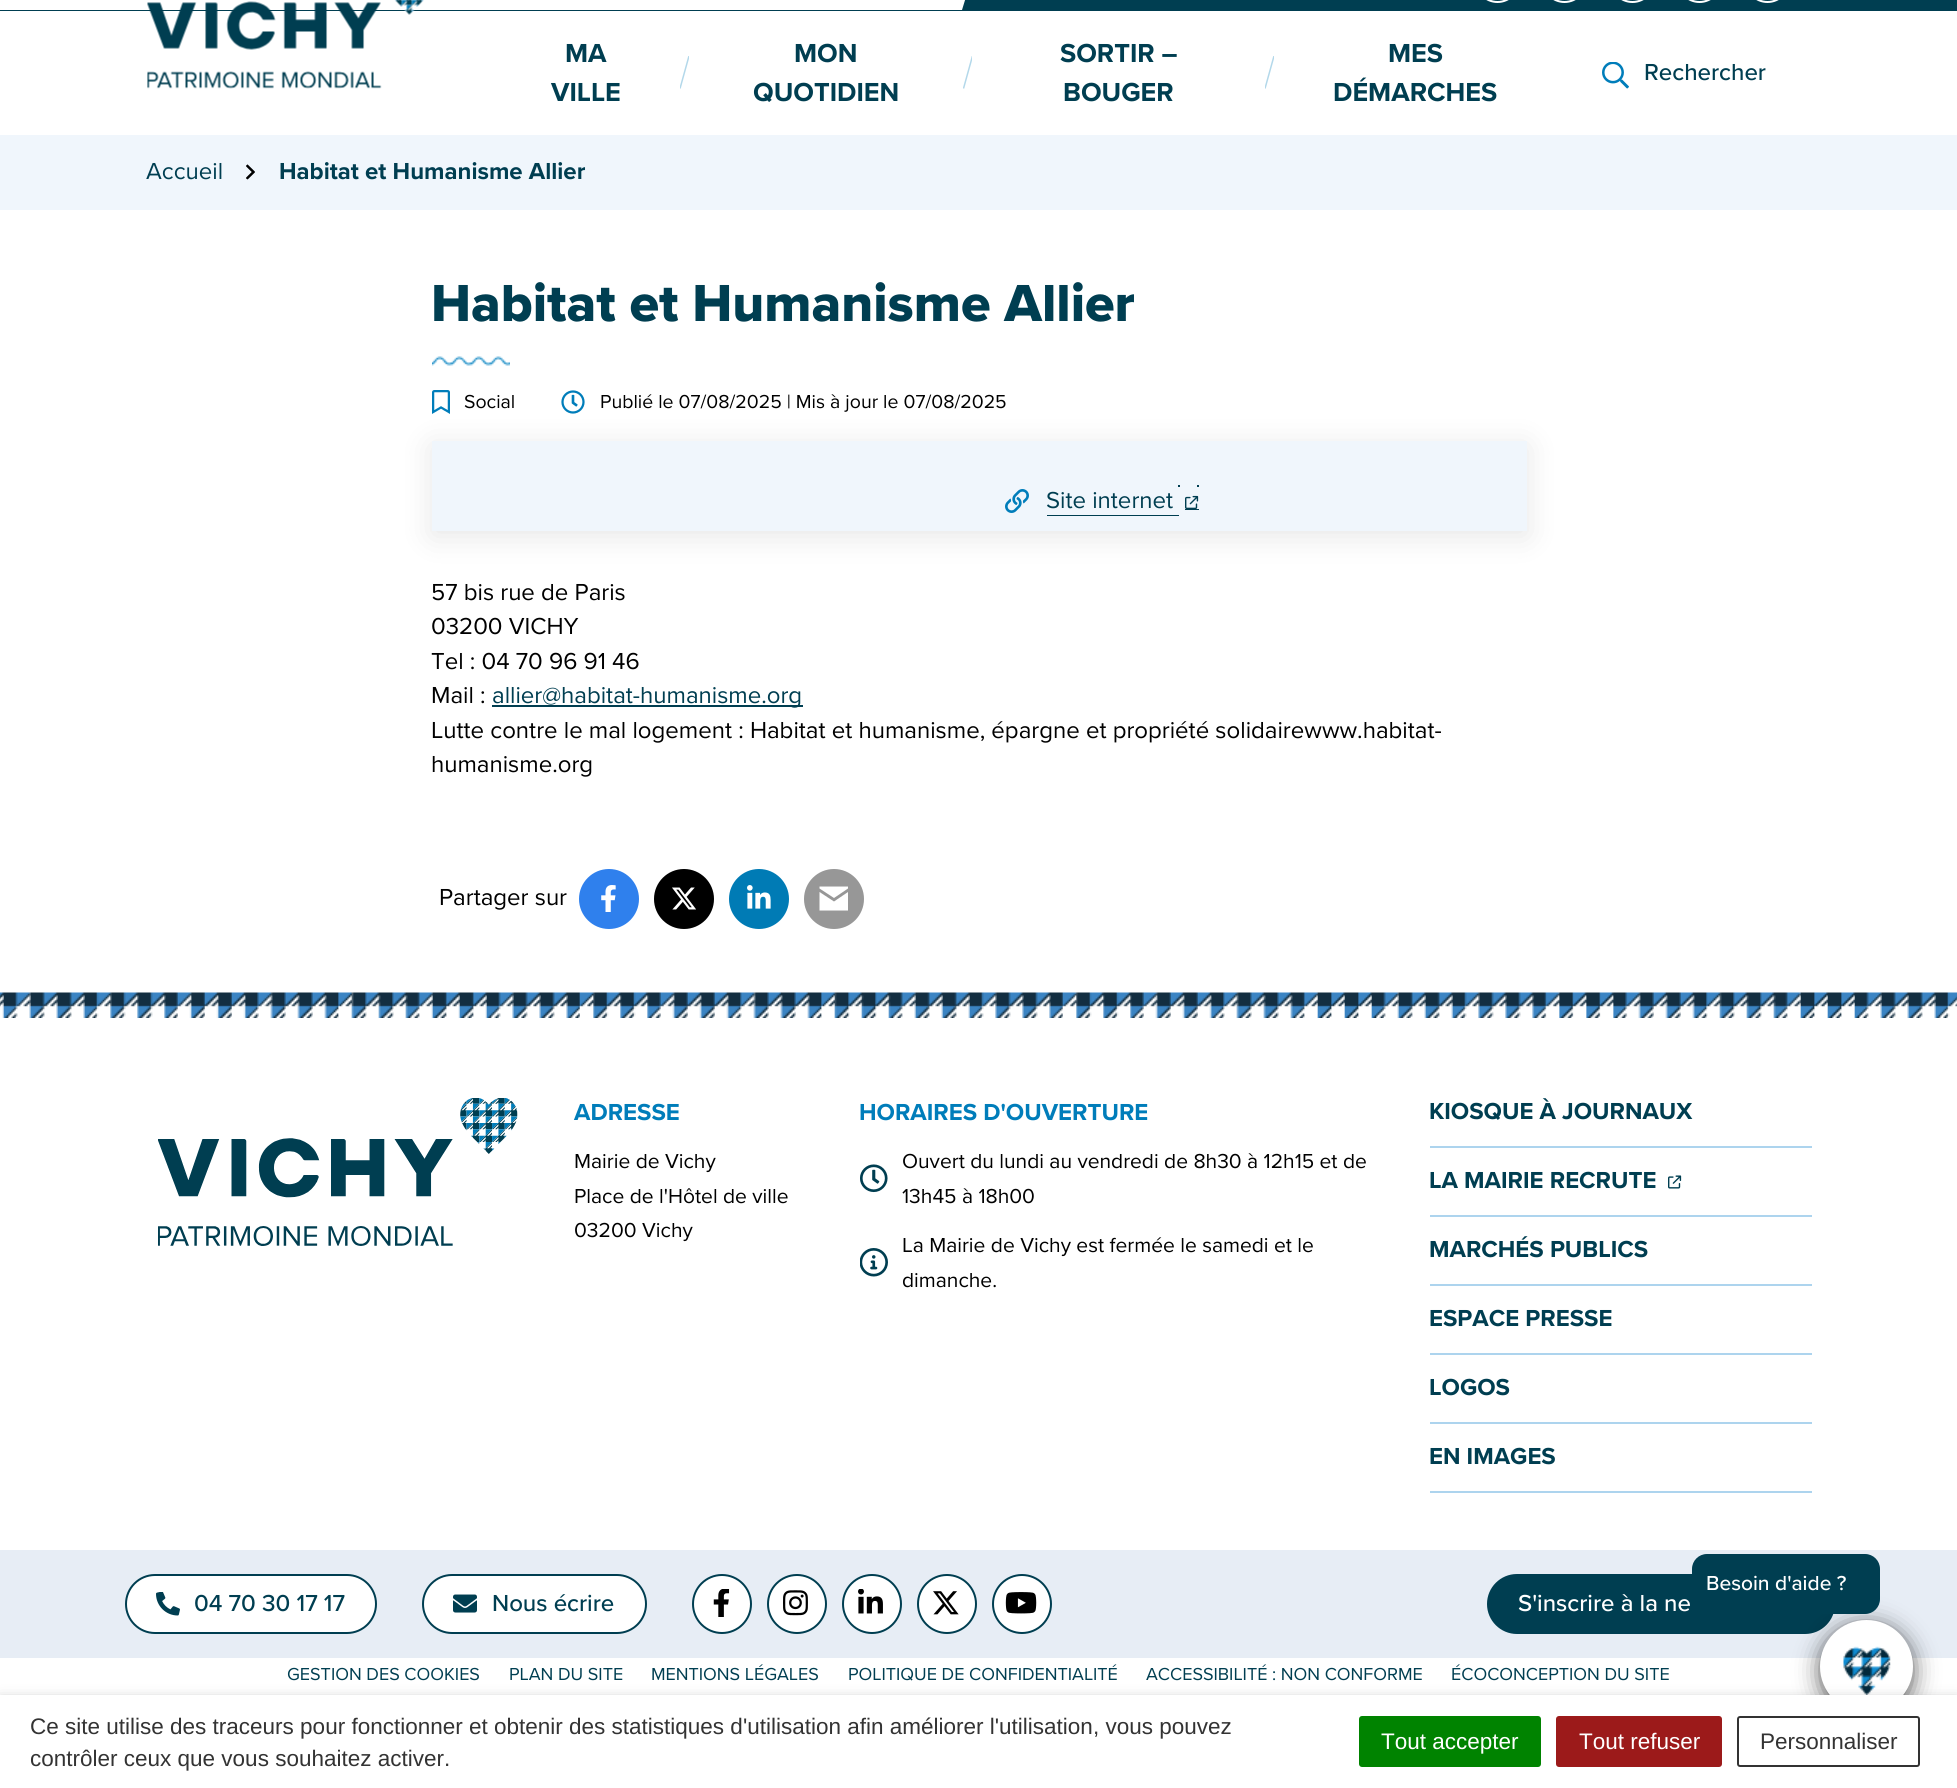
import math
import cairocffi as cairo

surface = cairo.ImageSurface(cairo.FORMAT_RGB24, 1957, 1788)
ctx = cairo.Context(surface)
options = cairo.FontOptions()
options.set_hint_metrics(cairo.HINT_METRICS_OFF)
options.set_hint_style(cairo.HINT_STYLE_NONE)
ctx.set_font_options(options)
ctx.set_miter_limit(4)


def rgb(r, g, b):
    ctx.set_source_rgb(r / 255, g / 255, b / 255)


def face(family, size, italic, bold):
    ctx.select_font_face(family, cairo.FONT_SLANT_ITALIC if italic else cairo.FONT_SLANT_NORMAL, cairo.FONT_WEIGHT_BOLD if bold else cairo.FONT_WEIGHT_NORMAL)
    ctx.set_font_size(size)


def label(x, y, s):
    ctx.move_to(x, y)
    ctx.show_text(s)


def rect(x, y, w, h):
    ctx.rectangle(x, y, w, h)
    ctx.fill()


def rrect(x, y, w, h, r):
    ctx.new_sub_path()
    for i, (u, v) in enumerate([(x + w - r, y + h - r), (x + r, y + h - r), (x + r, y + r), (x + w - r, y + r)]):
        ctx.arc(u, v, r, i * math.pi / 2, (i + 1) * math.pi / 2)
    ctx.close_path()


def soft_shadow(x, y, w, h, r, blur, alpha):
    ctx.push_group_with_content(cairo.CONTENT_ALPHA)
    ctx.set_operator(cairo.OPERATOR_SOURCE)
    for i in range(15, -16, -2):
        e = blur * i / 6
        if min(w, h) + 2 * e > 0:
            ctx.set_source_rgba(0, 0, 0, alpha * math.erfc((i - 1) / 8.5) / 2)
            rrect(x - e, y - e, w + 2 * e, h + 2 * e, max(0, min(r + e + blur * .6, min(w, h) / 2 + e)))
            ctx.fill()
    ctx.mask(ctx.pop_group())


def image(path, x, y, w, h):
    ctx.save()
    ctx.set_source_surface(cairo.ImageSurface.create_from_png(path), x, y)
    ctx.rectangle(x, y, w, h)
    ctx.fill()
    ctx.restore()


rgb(255, 255, 255)
ctx.paint()
rgb(0, 62, 81)
rect(0, 0, 1957, 11)
rrect(1476, -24, 43, 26, 21.5)
rgb(255, 255, 255)
ctx.stroke()
rrect(1543, -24, 43, 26, 21.5)
ctx.stroke()
rrect(1611, -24, 43, 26, 21.5)
ctx.stroke()
rrect(1678, -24, 43, 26, 21.5)
ctx.stroke()
rrect(1746, -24, 43, 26, 21.5)
ctx.stroke()
ctx.new_path()
ctx.move_to(980, -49)
ctx.line_to(962, 10)
ctx.line_to(-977, 10)
ctx.line_to(-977, -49)
ctx.close_path()
ctx.fill()
image('image0.png', 147, 0, 277, 89)
face('Proxima Nova', 27, 0, 1)
rgb(0, 62, 81)
label(565, 62, 'MA')
label(551, 101, 'VILLE')
ctx.save()
ctx.rectangle(680, 56, 9, 34)
ctx.clip()
ctx.new_path()
ctx.move_to(689, 56)
ctx.line_to(680, 88.5)
rgb(179, 216, 234)
ctx.set_line_width(1.5)
ctx.stroke()
ctx.restore()
label(794, 62, 'MON')
label(753, 101, 'QUOTIDIEN')
ctx.save()
ctx.rectangle(963, 56, 9, 34)
ctx.clip()
ctx.new_path()
ctx.move_to(972.5, 56)
ctx.line_to(963.5, 88.5)
rgb(179, 216, 234)
ctx.set_line_width(1.5)
ctx.stroke()
ctx.restore()
label(1060, 62, 'SORTIR –')
label(1063, 101, 'BOUGER')
ctx.save()
ctx.rectangle(1265, 56, 9, 34)
ctx.clip()
ctx.new_path()
ctx.move_to(1274, 56)
ctx.line_to(1265, 88.5)
rgb(179, 216, 234)
ctx.set_line_width(1.5)
ctx.stroke()
ctx.restore()
label(1388, 62, 'MES')
label(1333, 101, 'DÉMARCHES')
image('image1.png', 1602, 62, 27, 27)
face('Proxima Nova Medium', 24, 0, 0)
label(1644, 80, 'Rechercher')
rgb(240, 246, 252)
rect(0, 135, 1957, 75)
face('Proxima Nova', 24, 0, 0)
rgb(0, 62, 81)
label(146, 179, 'Accueil')
image('image2.png', 246, 164, 9, 16)
face('Proxima Nova', 24, 0, 1)
label(279, 179, 'Habitat et Humanisme Allier')
face('Proxima Nova ExtraBold', 54, 0, 0)
label(431, 321, 'Habitat et Humanisme Allier')
image('image3.png', 432, 356, 78, 10)
image('image4.png', 432, 390, 18, 24)
face('Proxima Nova', 19.5, 0, 0)
rgb(0, 0, 0)
label(464, 408, 'Social')
image('image5.png', 561, 390, 24, 24)
label(600, 408, 'Publié le 07/08/2025 | Mis à jour le 07/08/2025')
rgb(0, 0, 0)
soft_shadow(432, 446, 1095, 90, 0, 15, 0.1)
rgb(240, 246, 252)
rect(432, 441, 1095, 90)
image('image6.png', 1005, 489, 24, 24)
rgb(0, 62, 81)
rect(1047, 515, 132, 1)
rect(1178, 485, 2, 2)
rect(1185, 509, 14, 1)
rect(1197, 485, 2, 2)
face('Proxima Nova', 24, 0, 0)
label(1046, 508, 'Site internet')
image('image7.png', 1185, 495, 14, 14)
rgb(0, 0, 0)
label(431, 600, '57 bis rue de Paris')
label(431, 634, '03200 VICHY')
label(431, 669, 'Tel : 04 70 96 91 46')
label(431, 703, 'Mail :')
rgb(0, 62, 81)
rect(492, 705, 311, 2)
label(492, 703, 'allier@habitat-humanisme.org')
rgb(0, 0, 0)
label(431, 738, 'Lutte contre le mal logement : Habitat et humanisme, épargne et propriété solidairewww.habitat-')
label(431, 772, 'humanisme.org')
label(439, 905, 'Partager sur')
rgb(47, 128, 237)
ctx.new_path()
ctx.arc(609, 899, 29, 0, 2 * math.pi)
ctx.fill_preserve()
ctx.stroke()
image('image8.png', 601, 885, 15, 27)
rgb(0, 0, 0)
ctx.arc(684, 899, 29, 0, 2 * math.pi)
ctx.fill_preserve()
ctx.stroke()
image('image9.png', 672, 887, 24, 23)
rgb(0, 123, 181)
ctx.arc(759, 899, 29, 0, 2 * math.pi)
ctx.fill_preserve()
ctx.stroke()
image('image10.png', 747, 885, 24, 24)
rgb(151, 151, 151)
ctx.arc(834, 899, 29, 0, 2 * math.pi)
ctx.fill_preserve()
ctx.stroke()
rgb(255, 255, 255)
ctx.new_path()
ctx.move_to(819.5, 886.5)
ctx.line_to(819.5, 888.5)
ctx.line_to(834, 898)
ctx.line_to(848, 888.5)
ctx.line_to(848, 886.5)
ctx.close_path()
ctx.move_to(819.5, 892)
ctx.line_to(819.5, 910.5)
ctx.line_to(848, 910.5)
ctx.line_to(848, 892)
ctx.line_to(834, 901.5)
ctx.close_path()
ctx.fill()
image('image11.png', 0, 992, 1957, 26)
image('image12.png', 158, 1098, 360, 148)
face('Proxima Nova', 24, 0, 1)
rgb(0, 125, 186)
label(574, 1120, 'ADRESSE')
face('Proxima Nova', 21, 0, 0)
rgb(0, 0, 0)
label(574, 1168, 'Mairie de Vichy')
label(574, 1203, 'Place de l\'Hôtel de ville')
label(574, 1237, '03200 Vichy')
face('Proxima Nova', 24, 0, 1)
rgb(0, 125, 186)
label(859, 1120, 'HORAIRES D\'OUVERTURE')
face('Proxima Nova', 21, 0, 0)
rgb(0, 0, 0)
label(902, 1168, 'Ouvert du lundi au vendredi de 8h30 à 12h15 et de')
image('image13.png', 860, 1164, 28, 29)
label(902, 1203, '13h45 à 18h00')
image('image14.png', 860, 1248, 28, 29)
label(902, 1252, 'La Mairie de Vichy est fermée le samedi et le')
label(902, 1287, 'dimanche.')
rgb(173, 212, 238)
rect(1430, 1146, 382, 2)
face('Proxima Nova', 24, 0, 1)
rgb(0, 62, 81)
label(1429, 1119, 'KIOSQUE À JOURNAUX')
rgb(173, 212, 238)
rect(1430, 1215, 382, 2)
rgb(0, 62, 81)
label(1429, 1188, 'LA MAIRIE RECRUTE')
image('image15.png', 1668, 1175, 14, 14)
rgb(173, 212, 238)
rect(1430, 1284, 382, 2)
rgb(0, 62, 81)
label(1429, 1257, 'MARCHÉS PUBLICS')
rgb(173, 212, 238)
rect(1430, 1353, 382, 2)
rgb(0, 62, 81)
label(1429, 1326, 'ESPACE PRESSE')
rgb(173, 212, 238)
rect(1430, 1422, 382, 2)
rgb(0, 62, 81)
label(1429, 1395, 'LOGOS')
rgb(173, 212, 238)
rect(1430, 1491, 382, 2)
rgb(0, 62, 81)
label(1429, 1464, 'EN IMAGES')
rgb(231, 237, 245)
rect(0, 1550, 1957, 108)
rgb(255, 255, 255)
rrect(126, 1575, 250, 58, 29)
ctx.fill_preserve()
rgb(0, 62, 81)
ctx.stroke()
image('image16.png', 156, 1592, 24, 24)
face('Proxima Nova Medium', 24, 0, 0)
label(194, 1611, '04 70 30 17 17')
rgb(255, 255, 255)
rrect(423, 1575, 223, 58, 29)
ctx.fill_preserve()
rgb(0, 62, 81)
ctx.stroke()
image('image17.png', 453, 1594, 24, 19)
label(492, 1611, 'Nous écrire')
rgb(255, 255, 255)
ctx.new_path()
ctx.arc(722, 1604, 29, 0, 2 * math.pi)
ctx.fill_preserve()
rgb(0, 62, 81)
ctx.stroke()
image('image18.png', 713, 1589, 17, 28)
rgb(255, 255, 255)
ctx.arc(797, 1604, 29, 0, 2 * math.pi)
ctx.fill_preserve()
rgb(0, 62, 81)
ctx.stroke()
image('image19.png', 783, 1590, 25, 26)
rgb(255, 255, 255)
ctx.arc(872, 1604, 29, 0, 2 * math.pi)
ctx.fill_preserve()
rgb(0, 62, 81)
ctx.stroke()
image('image20.png', 858, 1589, 25, 25)
rgb(255, 255, 255)
ctx.arc(947, 1604, 29, 0, 2 * math.pi)
ctx.fill_preserve()
rgb(0, 62, 81)
ctx.stroke()
image('image21.png', 933, 1591, 26, 24)
rgb(255, 255, 255)
ctx.arc(1022, 1604, 29, 0, 2 * math.pi)
ctx.fill_preserve()
rgb(0, 62, 81)
ctx.stroke()
image('image22.png', 1005, 1592, 32, 22)
rrect(1488, 1575, 346, 58, 29)
ctx.fill_preserve()
ctx.stroke()
rgb(255, 255, 255)
label(1518, 1611, 'S\'inscrire à la ne')
face('Proxima Nova', 18, 0, 0)
rgb(0, 62, 81)
label(287, 1680, 'GESTION DES COOKIES')
label(509, 1680, 'PLAN DU SITE')
label(651, 1680, 'MENTIONS LÉGALES')
label(848, 1680, 'POLITIQUE DE CONFIDENTIALITÉ')
label(1146, 1680, 'ACCESSIBILITÉ : NON CONFORME')
label(1451, 1680, 'ÉCOCONCEPTION DU SITE')
rgb(0, 0, 0)
soft_shadow(1820, 1622, 93, 93, 46.5, 4, 0.12)
soft_shadow(1823, 1628, 87, 87, 43.5, 1, 0.2)
soft_shadow(1820, 1625, 93, 93, 46.5, 12, 0.6)
rgb(255, 255, 255)
ctx.arc(1866.5, 1666.5, 46.5, 0, 2 * math.pi)
ctx.fill()
rgb(0, 62, 81)
rrect(1692, 1554, 188, 60, 15)
ctx.fill()
face('Proxima Nova Medium', 21, 0, 0)
rgb(255, 255, 255)
label(1706, 1590, 'Besoin d\'aide ?')
image('image23.png', 1843, 1646, 48, 49)
rgb(0, 0, 0)
soft_shadow(0, 1703, 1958, 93, 0, 7.5, 0.5)
rgb(255, 255, 255)
rect(0, 1695, 1957, 93)
face('Liberation Sans', 22.5, 0, 0)
rgb(51, 51, 51)
label(30, 1734, 'Ce site utilise des traceurs pour fonctionner et obtenir des statistiques d\'utilisation afin améliorer l\'utilisation, vous pouvez')
label(30, 1766, 'contrôler ceux que vous souhaitez activer.')
rgb(0, 131, 0)
rrect(1359, 1716, 182, 51, 3)
ctx.fill()
rgb(255, 255, 255)
label(1381, 1749, 'Tout accepter')
rgb(156, 26, 26)
rrect(1556, 1716, 166, 51, 3)
ctx.fill()
rgb(255, 255, 255)
label(1579, 1749, 'Tout refuser')
rrect(1738, 1717, 181, 49, 2)
rgb(51, 51, 51)
ctx.stroke()
label(1760, 1749, 'Personnaliser')
surface.write_to_png('render.png')
